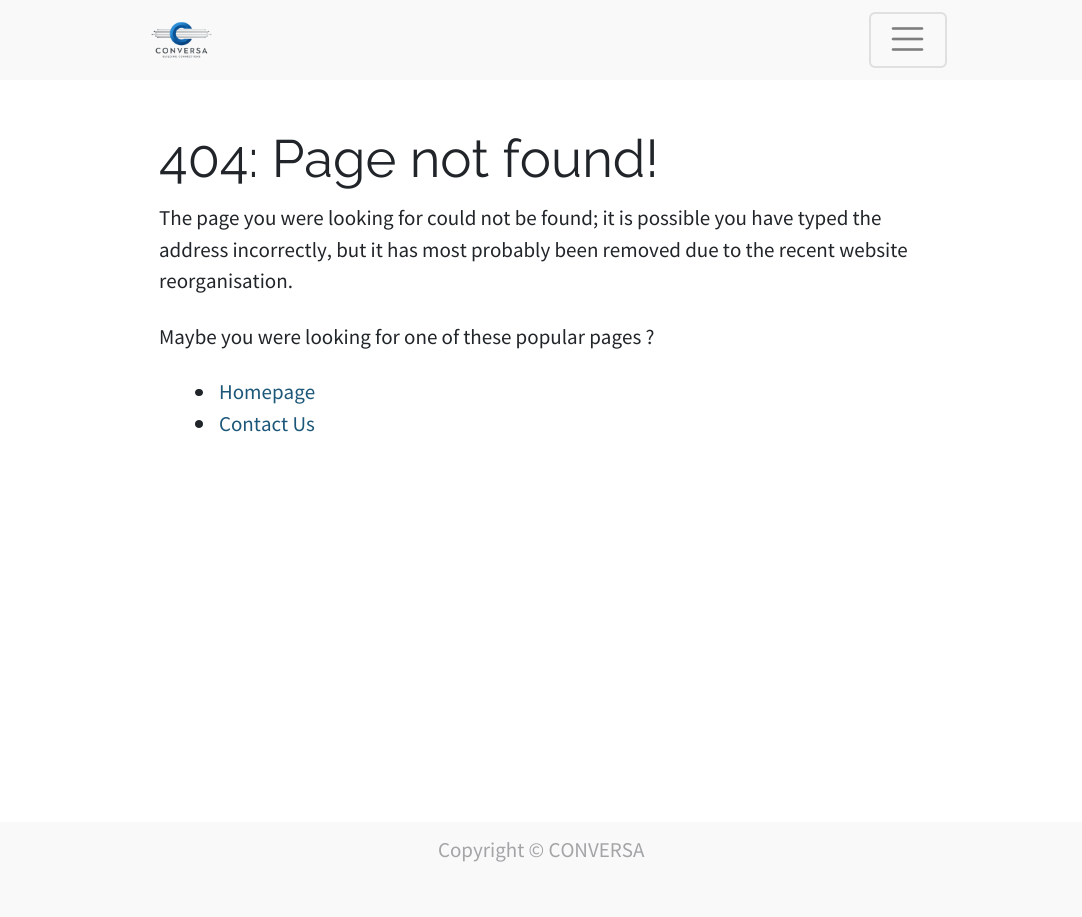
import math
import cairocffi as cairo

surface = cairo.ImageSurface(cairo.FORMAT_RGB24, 1082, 917)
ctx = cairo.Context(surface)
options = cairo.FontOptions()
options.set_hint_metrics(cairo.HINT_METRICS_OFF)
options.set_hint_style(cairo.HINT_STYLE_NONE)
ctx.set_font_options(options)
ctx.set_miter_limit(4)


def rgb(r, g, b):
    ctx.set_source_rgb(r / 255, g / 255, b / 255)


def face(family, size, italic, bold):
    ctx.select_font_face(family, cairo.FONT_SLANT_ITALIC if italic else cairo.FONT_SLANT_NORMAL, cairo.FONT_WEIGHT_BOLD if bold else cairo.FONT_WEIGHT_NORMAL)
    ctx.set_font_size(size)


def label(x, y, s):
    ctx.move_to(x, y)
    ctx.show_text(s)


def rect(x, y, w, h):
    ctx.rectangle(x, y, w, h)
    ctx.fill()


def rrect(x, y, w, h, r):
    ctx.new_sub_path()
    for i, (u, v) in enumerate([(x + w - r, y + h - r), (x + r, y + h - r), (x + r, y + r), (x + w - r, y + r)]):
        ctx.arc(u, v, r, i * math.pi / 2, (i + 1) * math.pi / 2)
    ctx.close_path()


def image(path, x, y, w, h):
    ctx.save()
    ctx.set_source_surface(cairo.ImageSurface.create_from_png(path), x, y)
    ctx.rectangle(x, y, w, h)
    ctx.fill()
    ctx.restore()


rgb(255, 255, 255)
ctx.paint()
rgb(249, 249, 249)
rect(0, 0, 1082, 80)
image('image0.png', 151, 22, 61, 36)
rrect(870, 13, 76, 54, 5)
rgb(224, 224, 224)
ctx.stroke()
ctx.new_path()
ctx.move_to(893, 28.5)
ctx.line_to(922, 28.5)
ctx.move_to(893, 39)
ctx.line_to(922, 39)
ctx.move_to(893, 49.5)
ctx.line_to(922, 49.5)
rgb(125, 125, 125)
ctx.set_line_width(2.6)
ctx.set_line_cap(cairo.LINE_CAP_ROUND)
ctx.stroke()
face('Raleway', 52.5, 0, 0)
rgb(33, 37, 41)
label(159, 177, '404: Page not found!')
face('Source Sans Pro', 21, 0, 0)
label(159, 225, 'The page you were looking for could not be found; it is possible you have typed the')
label(159, 257, 'address incorrectly, but it has most probably been removed due to the recent website')
label(159, 288, 'reorganisation.')
label(159, 344, 'Maybe you were looking for one of these popular pages ?')
rrect(195, 389, 8, 7, 3.5)
ctx.fill()
rgb(28, 87, 121)
label(219, 399, 'Homepage')
rgb(33, 37, 41)
ctx.new_path()
ctx.arc(199, 424, 4, 0, 2 * math.pi)
ctx.fill()
rgb(28, 87, 121)
label(219, 431, 'Contact Us')
rgb(249, 249, 249)
rect(0, 822, 1082, 95)
rgb(163, 164, 166)
label(438, 857, 'Copyright © CONVERSA')
surface.write_to_png('render.png')
